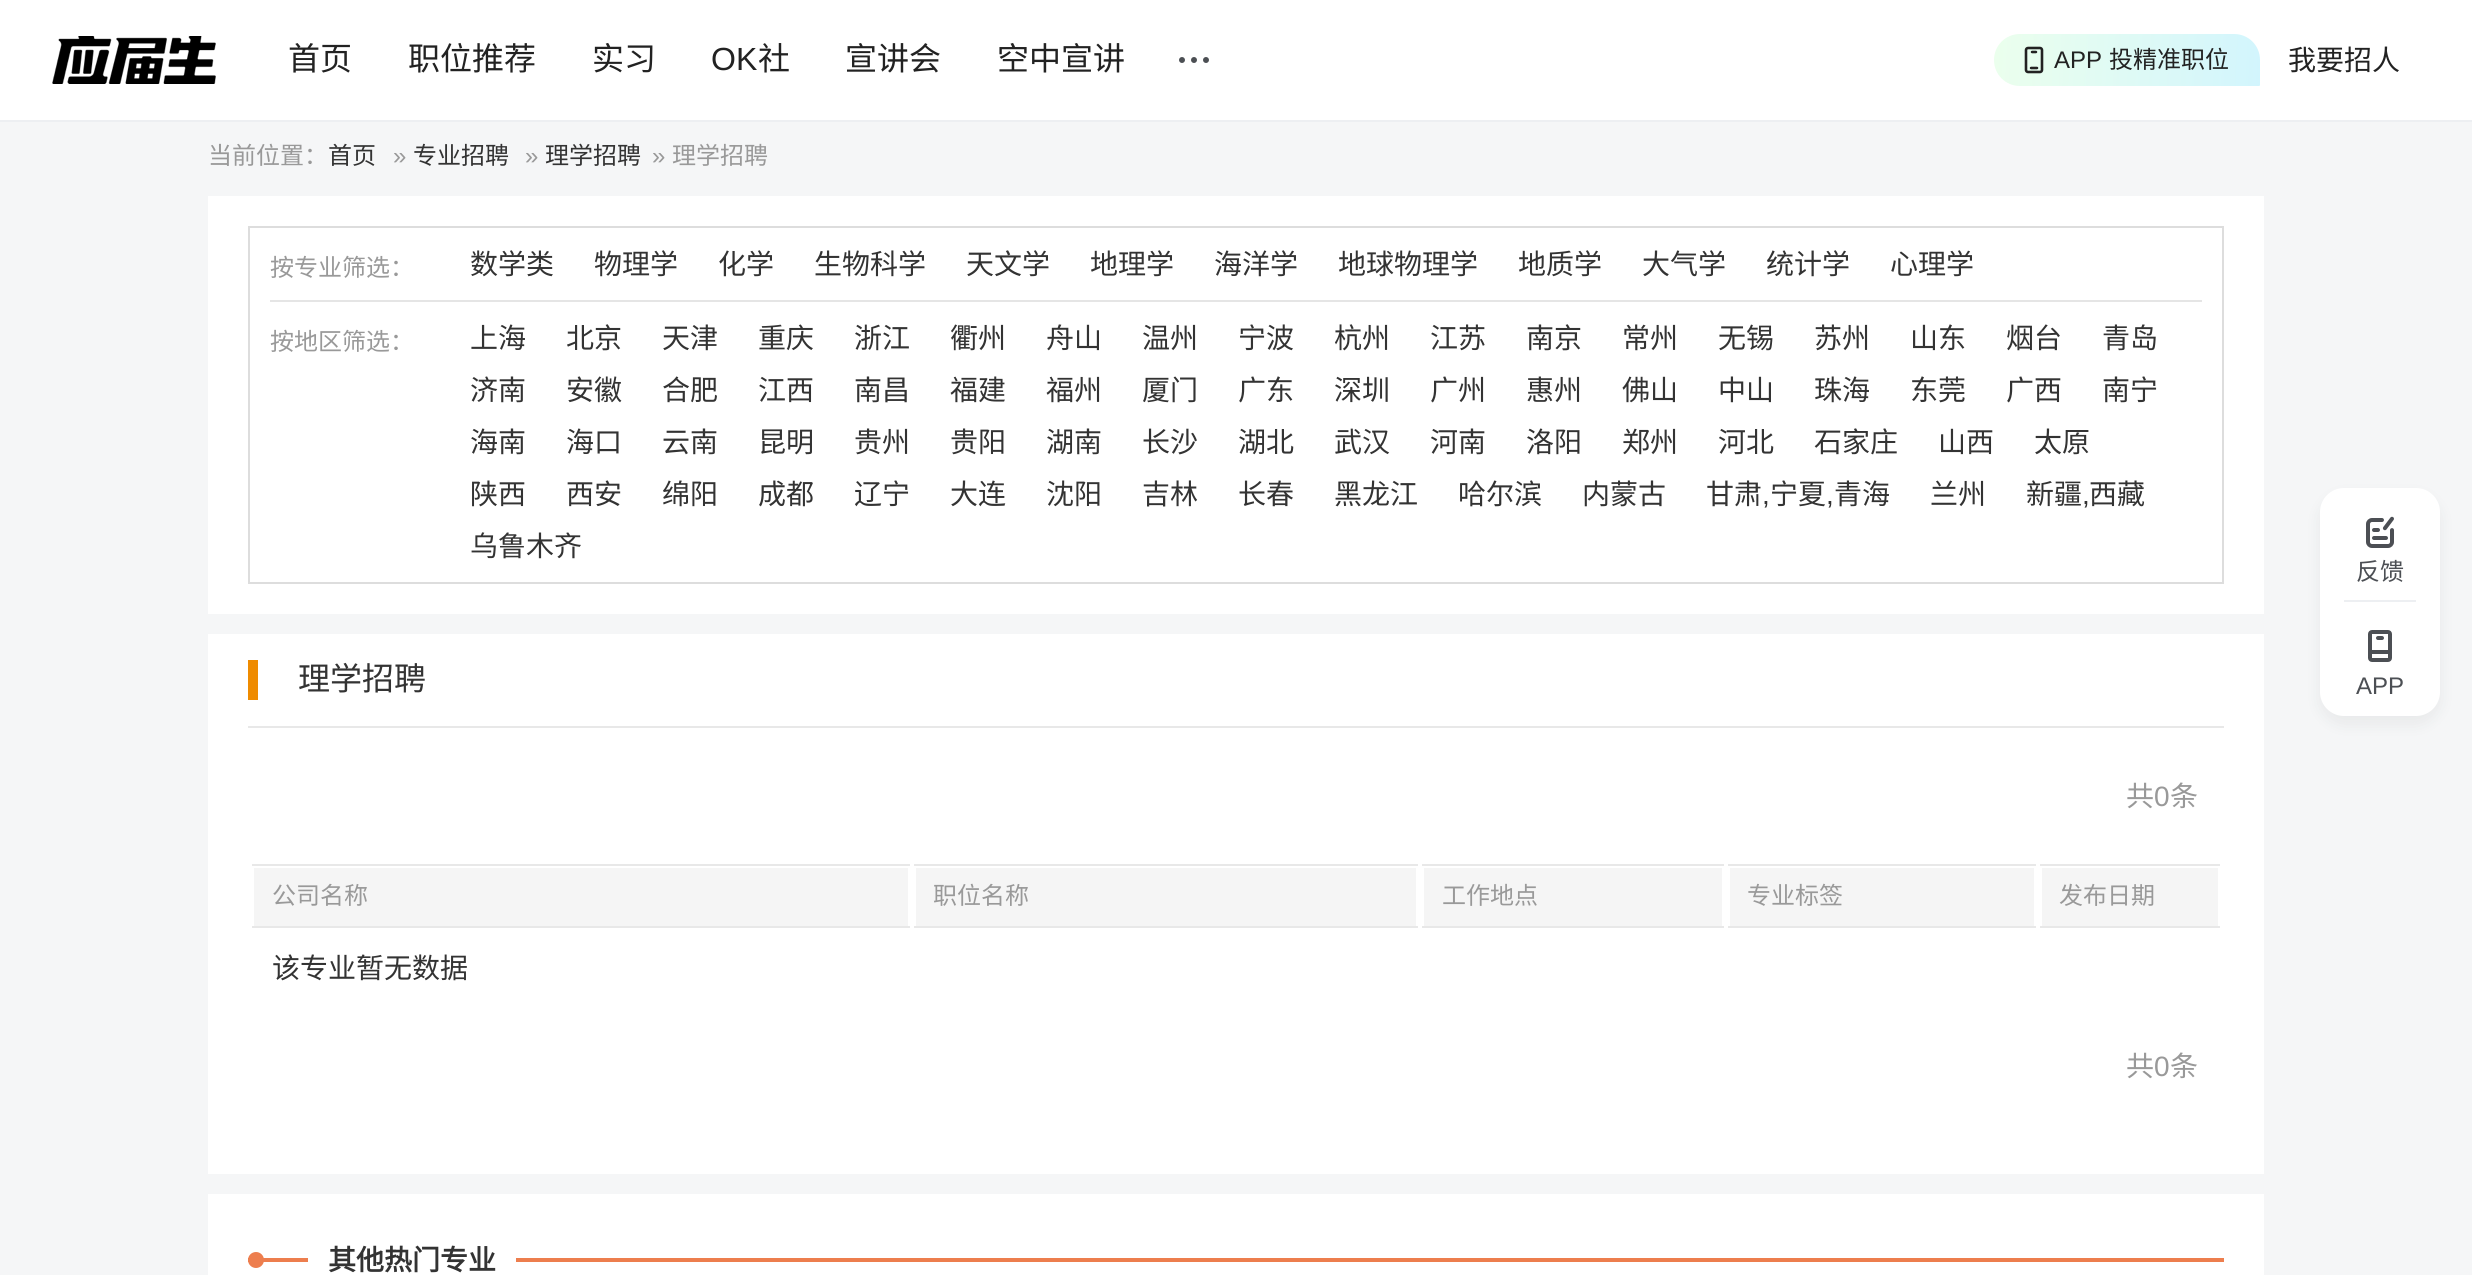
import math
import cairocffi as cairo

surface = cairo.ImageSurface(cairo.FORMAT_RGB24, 2472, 1275)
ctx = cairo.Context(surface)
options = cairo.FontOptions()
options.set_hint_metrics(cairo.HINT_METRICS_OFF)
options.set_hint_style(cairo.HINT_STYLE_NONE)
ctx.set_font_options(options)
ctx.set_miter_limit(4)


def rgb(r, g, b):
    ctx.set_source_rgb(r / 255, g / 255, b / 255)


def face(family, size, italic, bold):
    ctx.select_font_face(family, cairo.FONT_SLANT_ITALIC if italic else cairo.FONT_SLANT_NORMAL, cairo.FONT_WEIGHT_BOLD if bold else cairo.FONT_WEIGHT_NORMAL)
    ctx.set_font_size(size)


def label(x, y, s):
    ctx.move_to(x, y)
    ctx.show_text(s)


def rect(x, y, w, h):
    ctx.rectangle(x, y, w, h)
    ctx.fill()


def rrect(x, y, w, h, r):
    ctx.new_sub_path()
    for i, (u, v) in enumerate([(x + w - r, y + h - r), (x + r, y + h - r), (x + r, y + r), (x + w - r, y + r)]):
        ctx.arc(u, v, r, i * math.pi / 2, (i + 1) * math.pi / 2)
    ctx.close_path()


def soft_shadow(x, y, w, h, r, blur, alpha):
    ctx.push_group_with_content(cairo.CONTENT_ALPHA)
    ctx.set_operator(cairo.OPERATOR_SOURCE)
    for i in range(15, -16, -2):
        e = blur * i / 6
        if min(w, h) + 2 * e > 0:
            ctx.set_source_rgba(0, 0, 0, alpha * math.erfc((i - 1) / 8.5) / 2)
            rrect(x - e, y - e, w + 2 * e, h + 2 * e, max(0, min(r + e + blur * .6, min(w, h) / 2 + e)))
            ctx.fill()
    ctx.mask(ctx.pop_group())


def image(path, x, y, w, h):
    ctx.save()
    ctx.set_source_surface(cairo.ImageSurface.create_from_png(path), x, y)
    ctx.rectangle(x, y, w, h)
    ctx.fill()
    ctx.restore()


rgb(245, 246, 247)
ctx.paint()
rgb(255, 255, 255)
rect(0, 0, 2472, 120)
rgb(237, 239, 242)
rect(0, 120, 2472, 2)
image('image0.png', 52, 36, 164, 48)
face('Noto Sans CJK SC', 32, 0, 0)
rgb(34, 34, 34)
label(288, 70, '首页')
label(408, 70, '职位推荐')
label(592, 70, '实习')
face('Liberation Sans', 32, 0, 0)
label(711, 70, 'OK')
face('Noto Sans CJK SC', 32, 0, 0)
label(758, 70, '社')
label(845, 70, '宣讲会')
label(997, 70, '空中宣讲')
image('image1.png', 1179, 57, 30, 6)
gradient = cairo.LinearGradient(2261, 67, 1993, 53)
gradient.add_color_stop_rgba(0, 0.812, 0.957, 1, 1)
gradient.add_color_stop_rgba(0, 0.824, 0.961, 0.992, 1)
gradient.add_color_stop_rgba(1, 0.922, 1, 0.929, 1)
ctx.set_source(gradient)
ctx.new_path()
ctx.move_to(2020, 34)
ctx.line_to(2234, 34)
ctx.curve_to(2248.5, 34, 2260, 45.5, 2260, 60)
ctx.line_to(2260, 85)
ctx.curve_to(2260, 85.5, 2259.5, 86, 2259, 86)
ctx.line_to(2020, 86)
ctx.curve_to(2005.5, 86, 1994, 74.5, 1994, 60)
ctx.curve_to(1994, 45.5, 2005.5, 34, 2020, 34)
ctx.close_path()
ctx.fill()
image('image2.png', 2024, 46, 20, 28)
face('Liberation Sans', 24, 0, 0)
rgb(34, 34, 34)
label(2054, 68, 'APP')
face('Noto Sans CJK SC', 24, 0, 0)
label(2109, 68, '投精准职位')
face('Noto Sans CJK SC', 28, 0, 0)
label(2288, 70, '我要招人')
face('Noto Sans CJK SC', 24, 0, 0)
rgb(153, 153, 153)
label(208, 164, '当前位置：')
rgb(51, 51, 51)
label(328, 164, '首页')
face('Liberation Sans', 24, 0, 0)
rgb(153, 153, 153)
label(393, 164, '»')
face('Noto Sans CJK SC', 24, 0, 0)
rgb(51, 51, 51)
label(413, 164, '专业招聘')
face('Liberation Sans', 24, 0, 0)
rgb(153, 153, 153)
label(525, 164, '»')
face('Noto Sans CJK SC', 24, 0, 0)
rgb(51, 51, 51)
label(545, 164, '理学招聘')
face('Liberation Sans', 24, 0, 0)
rgb(153, 153, 153)
label(652, 164, '»')
face('Noto Sans CJK SC', 24, 0, 0)
label(672, 164, '理学招聘')
rgb(255, 255, 255)
rect(208, 196, 2056, 418)
ctx.rectangle(249, 227, 1974, 356)
rgb(221, 221, 221)
ctx.stroke()
rgb(153, 153, 153)
label(270, 276, '按专业筛选：')
face('Noto Sans CJK SC', 28, 0, 0)
rgb(51, 51, 51)
label(470, 274, '数学类')
label(594, 274, '物理学')
label(718, 274, '化学')
label(814, 274, '生物科学')
label(966, 274, '天文学')
label(1090, 274, '地理学')
label(1214, 274, '海洋学')
label(1338, 274, '地球物理学')
label(1518, 274, '地质学')
label(1642, 274, '大气学')
label(1766, 274, '统计学')
label(1890, 274, '心理学')
rgb(229, 229, 229)
rect(270, 300, 1932, 2)
face('Noto Sans CJK SC', 24, 0, 0)
rgb(153, 153, 153)
label(270, 350, '按地区筛选：')
face('Noto Sans CJK SC', 28, 0, 0)
rgb(51, 51, 51)
label(470, 348, '上海')
label(566, 348, '北京')
label(662, 348, '天津')
label(758, 348, '重庆')
label(854, 348, '浙江')
label(950, 348, '衢州')
label(1046, 348, '舟山')
label(1142, 348, '温州')
label(1238, 348, '宁波')
label(1334, 348, '杭州')
label(1430, 348, '江苏')
label(1526, 348, '南京')
label(1622, 348, '常州')
label(1718, 348, '无锡')
label(1814, 348, '苏州')
label(1910, 348, '山东')
label(2006, 348, '烟台')
label(2102, 348, '青岛')
label(470, 400, '济南')
label(566, 400, '安徽')
label(662, 400, '合肥')
label(758, 400, '江西')
label(854, 400, '南昌')
label(950, 400, '福建')
label(1046, 400, '福州')
label(1142, 400, '厦门')
label(1238, 400, '广东')
label(1334, 400, '深圳')
label(1430, 400, '广州')
label(1526, 400, '惠州')
label(1622, 400, '佛山')
label(1718, 400, '中山')
label(1814, 400, '珠海')
label(1910, 400, '东莞')
label(2006, 400, '广西')
label(2102, 400, '南宁')
label(470, 452, '海南')
label(566, 452, '海口')
label(662, 452, '云南')
label(758, 452, '昆明')
label(854, 452, '贵州')
label(950, 452, '贵阳')
label(1046, 452, '湖南')
label(1142, 452, '长沙')
label(1238, 452, '湖北')
label(1334, 452, '武汉')
label(1430, 452, '河南')
label(1526, 452, '洛阳')
label(1622, 452, '郑州')
label(1718, 452, '河北')
label(1814, 452, '石家庄')
label(1938, 452, '山西')
label(2034, 452, '太原')
label(470, 504, '陕西')
label(566, 504, '西安')
label(662, 504, '绵阳')
label(758, 504, '成都')
label(854, 504, '辽宁')
label(950, 504, '大连')
label(1046, 504, '沈阳')
label(1142, 504, '吉林')
label(1238, 504, '长春')
label(1334, 504, '黑龙江')
label(1458, 504, '哈尔滨')
label(1582, 504, '内蒙古')
label(1706, 504, '甘肃')
face('Liberation Sans', 28, 0, 0)
label(1762, 504, ',')
face('Noto Sans CJK SC', 28, 0, 0)
label(1770, 504, '宁夏')
face('Liberation Sans', 28, 0, 0)
label(1826, 504, ',')
face('Noto Sans CJK SC', 28, 0, 0)
label(1834, 504, '青海')
label(1930, 504, '兰州')
label(2026, 504, '新疆')
face('Liberation Sans', 28, 0, 0)
label(2082, 504, ',')
face('Noto Sans CJK SC', 28, 0, 0)
label(2089, 504, '西藏')
label(470, 556, '乌鲁木齐')
rgb(255, 255, 255)
rect(208, 634, 2056, 540)
rgb(232, 232, 232)
rect(248, 726, 1976, 2)
rgb(239, 139, 0)
rect(248, 660, 10, 40)
face('Noto Sans CJK SC', 32, 0, 0)
rgb(51, 51, 51)
label(298, 690, '理学招聘')
face('Noto Sans CJK SC', 28, 0, 0)
rgb(153, 153, 153)
label(2126, 806, '共')
face('Liberation Sans', 28, 0, 0)
label(2154, 806, '0')
face('Noto Sans CJK SC', 28, 0, 0)
label(2170, 806, '条')
rgb(232, 232, 232)
rect(250, 864, 1974, 2)
rect(250, 926, 1974, 2)
rgb(255, 255, 255)
rect(250, 864, 2, 66)
rgb(245, 245, 245)
rect(254, 868, 654, 58)
face('Noto Sans CJK SC', 24, 0, 0)
rgb(153, 153, 153)
label(272, 904, '公司名称')
rgb(255, 255, 255)
rect(910, 864, 4, 66)
rgb(245, 245, 245)
rect(916, 868, 500, 58)
rgb(153, 153, 153)
label(933, 904, '职位名称')
rgb(255, 255, 255)
rect(1418, 864, 4, 66)
rgb(245, 245, 245)
rect(1424, 868, 298, 58)
rgb(153, 153, 153)
label(1442, 904, '工作地点')
rgb(255, 255, 255)
rect(1724, 864, 4, 66)
rgb(245, 245, 245)
rect(1730, 868, 304, 58)
rgb(153, 153, 153)
label(1747, 904, '专业标签')
rgb(255, 255, 255)
rect(2220, 864, 4, 66)
rect(2036, 864, 4, 66)
rgb(245, 245, 245)
rect(2042, 868, 176, 58)
rgb(153, 153, 153)
label(2059, 904, '发布日期')
face('Noto Sans CJK SC', 28, 0, 0)
rgb(51, 51, 51)
label(272, 978, '该专业暂无数据')
rgb(153, 153, 153)
label(2126, 1076, '共')
face('Liberation Sans', 28, 0, 0)
label(2154, 1076, '0')
face('Noto Sans CJK SC', 28, 0, 0)
label(2170, 1076, '条')
rgb(255, 255, 255)
rect(208, 1194, 2056, 81)
rgb(237, 126, 78)
rect(248, 1258, 1976, 4)
ctx.new_path()
ctx.arc(256, 1260, 8, 0, 2 * math.pi)
ctx.fill()
rgb(255, 255, 255)
rect(308, 1258, 208, 4)
face('Noto Sans CJK SC', 28, 0, 1)
rgb(51, 51, 51)
label(328, 1270, '其他热门专业')
rgb(76, 79, 84)
soft_shadow(2320, 496, 120, 228, 24, 8, 0.08)
rgb(255, 255, 255)
rrect(2320, 488, 120, 228, 24)
ctx.fill()
image('image3.png', 2366, 516, 28, 32)
face('Noto Sans CJK SC', 24, 0, 0)
rgb(76, 79, 84)
label(2356, 580, '反馈')
rgb(237, 239, 242)
rect(2344, 600, 72, 2)
image('image4.png', 2368, 630, 24, 32)
face('Liberation Sans', 24, 0, 0)
rgb(76, 79, 84)
label(2356, 694, 'APP')
surface.write_to_png('render.png')
